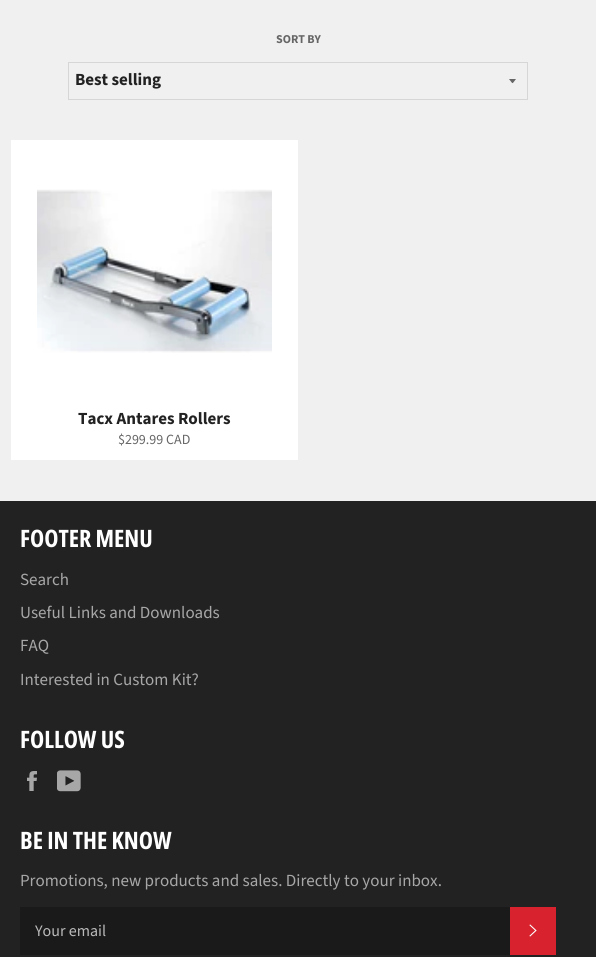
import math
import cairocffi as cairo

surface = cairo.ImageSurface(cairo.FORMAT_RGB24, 596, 957)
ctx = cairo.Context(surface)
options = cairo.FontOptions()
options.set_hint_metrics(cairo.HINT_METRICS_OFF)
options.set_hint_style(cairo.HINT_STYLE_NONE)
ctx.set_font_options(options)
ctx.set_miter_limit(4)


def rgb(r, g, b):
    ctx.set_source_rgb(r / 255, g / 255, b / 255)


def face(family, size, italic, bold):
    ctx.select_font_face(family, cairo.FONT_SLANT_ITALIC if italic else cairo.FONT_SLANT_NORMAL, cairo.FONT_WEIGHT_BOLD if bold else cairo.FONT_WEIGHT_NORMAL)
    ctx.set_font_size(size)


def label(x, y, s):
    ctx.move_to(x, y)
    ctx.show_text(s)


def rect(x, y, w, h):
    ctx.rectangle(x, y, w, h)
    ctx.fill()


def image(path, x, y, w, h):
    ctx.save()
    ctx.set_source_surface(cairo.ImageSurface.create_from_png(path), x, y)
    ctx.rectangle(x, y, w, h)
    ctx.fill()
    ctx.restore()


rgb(240, 240, 240)
ctx.paint()
face('Source Sans Pro', 12, 0, 1)
rgb(102, 102, 102)
label(276, 43, 'SORT BY')
ctx.new_path()
ctx.move_to(509, 79)
ctx.curve_to(513.5, 84.5, 511.5, 84.5, 516, 79)
ctx.close_path()
ctx.fill()
ctx.rectangle(68.5, 62.5, 459, 37)
rgb(214, 214, 214)
ctx.set_line_width(1)
ctx.stroke()
face('Source Sans Pro', 17, 0, 1)
rgb(34, 34, 34)
label(75, 85, 'Best selling')
rgb(255, 255, 255)
rect(11, 140, 287, 320)
image('image0.png', 37, 189, 235, 164)
rgb(34, 34, 34)
label(78, 424, 'Tacx Antares Rollers')
face('Source Sans Pro', 14, 0, 0)
rgb(102, 102, 102)
label(118, 444, '$299.99 CAD')
rgb(34, 34, 34)
rect(0, 501, 596, 456)
face('Open Sans Condensed', 24, 0, 1)
rgb(255, 255, 255)
label(20, 547, 'FOOTER MENU')
face('Source Sans Pro', 17, 0, 0)
rgb(167, 167, 167)
label(20, 585, 'Search')
label(20, 618, 'Useful Links and Downloads')
label(20, 651, 'FAQ')
label(20, 685, 'Interested in Custom Kit?')
face('Open Sans Condensed', 24, 0, 1)
rgb(255, 255, 255)
label(20, 748, 'FOLLOW US')
image('image1.png', 27, 771, 10, 20)
image('image2.png', 57, 770, 24, 22)
label(20, 849, 'BE IN THE KNOW')
face('Source Sans Pro', 17, 0, 0)
rgb(167, 167, 167)
label(20, 886, 'Promotions, new products and sales. Directly to your inbox.')
rgb(26, 26, 26)
rect(20, 907, 490, 48)
face('Source Sans Pro', 16, 0, 0)
rgb(186, 186, 186)
label(35, 936, 'Your email')
rgb(216, 35, 47)
rect(510, 907, 46, 48)
image('image3.png', 529, 924, 8, 13)
surface.write_to_png('render.png')
